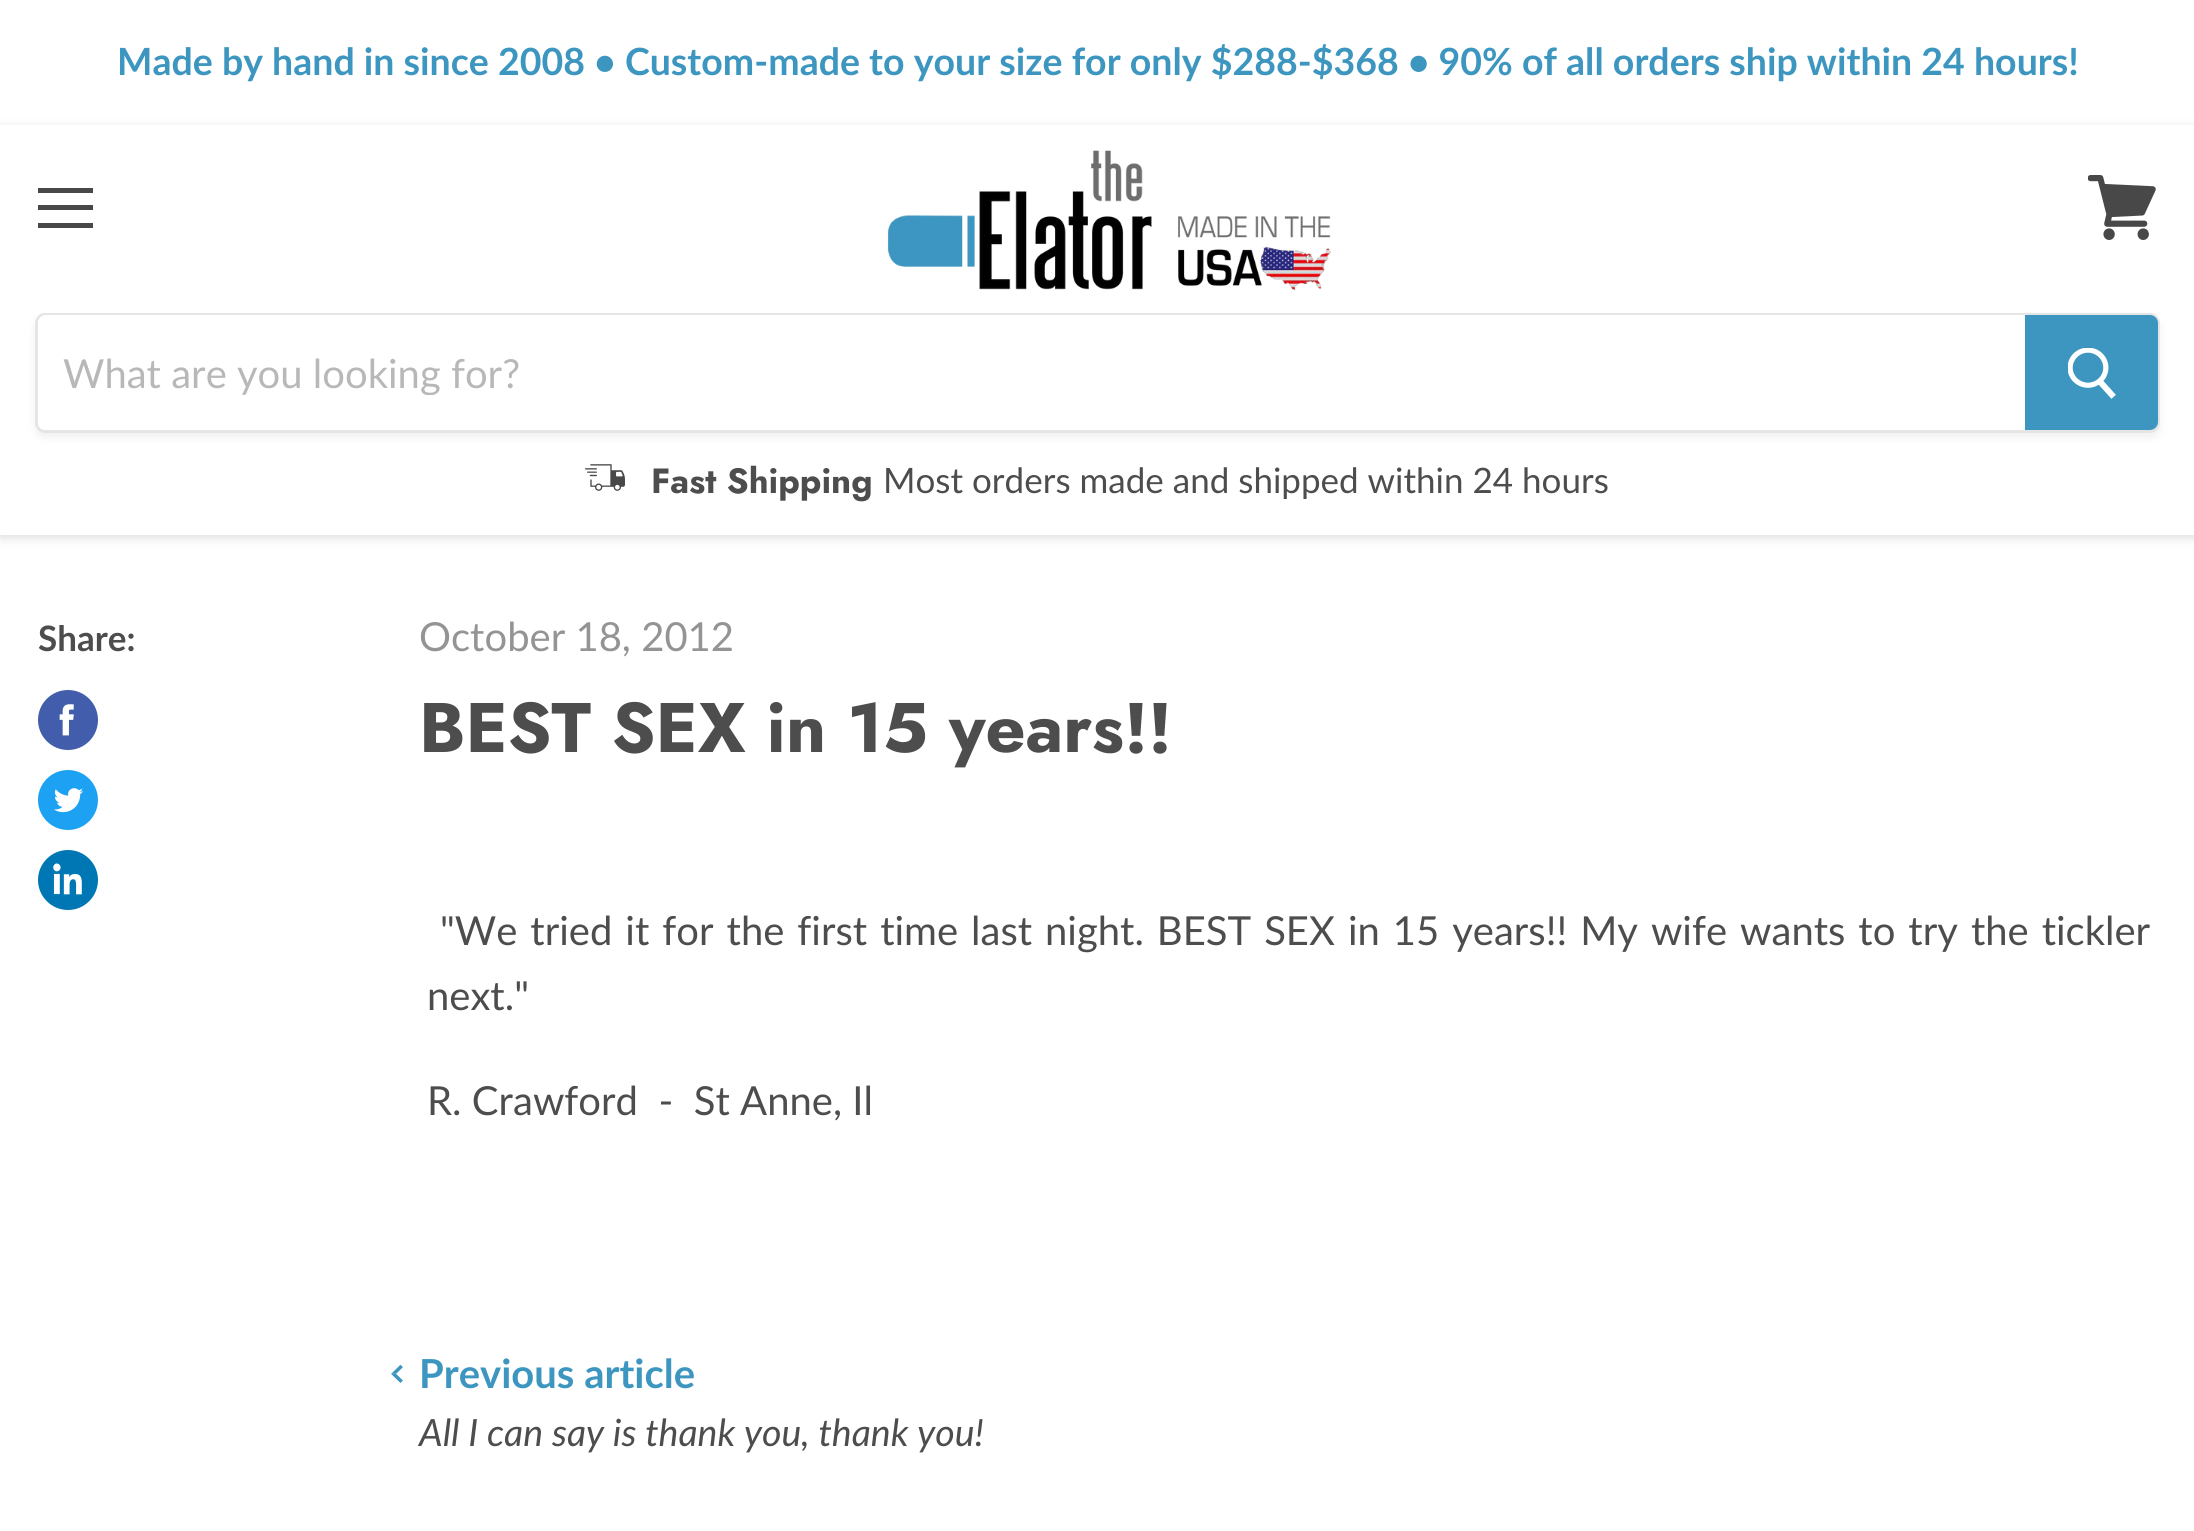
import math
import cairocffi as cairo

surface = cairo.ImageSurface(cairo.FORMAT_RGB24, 2194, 1531)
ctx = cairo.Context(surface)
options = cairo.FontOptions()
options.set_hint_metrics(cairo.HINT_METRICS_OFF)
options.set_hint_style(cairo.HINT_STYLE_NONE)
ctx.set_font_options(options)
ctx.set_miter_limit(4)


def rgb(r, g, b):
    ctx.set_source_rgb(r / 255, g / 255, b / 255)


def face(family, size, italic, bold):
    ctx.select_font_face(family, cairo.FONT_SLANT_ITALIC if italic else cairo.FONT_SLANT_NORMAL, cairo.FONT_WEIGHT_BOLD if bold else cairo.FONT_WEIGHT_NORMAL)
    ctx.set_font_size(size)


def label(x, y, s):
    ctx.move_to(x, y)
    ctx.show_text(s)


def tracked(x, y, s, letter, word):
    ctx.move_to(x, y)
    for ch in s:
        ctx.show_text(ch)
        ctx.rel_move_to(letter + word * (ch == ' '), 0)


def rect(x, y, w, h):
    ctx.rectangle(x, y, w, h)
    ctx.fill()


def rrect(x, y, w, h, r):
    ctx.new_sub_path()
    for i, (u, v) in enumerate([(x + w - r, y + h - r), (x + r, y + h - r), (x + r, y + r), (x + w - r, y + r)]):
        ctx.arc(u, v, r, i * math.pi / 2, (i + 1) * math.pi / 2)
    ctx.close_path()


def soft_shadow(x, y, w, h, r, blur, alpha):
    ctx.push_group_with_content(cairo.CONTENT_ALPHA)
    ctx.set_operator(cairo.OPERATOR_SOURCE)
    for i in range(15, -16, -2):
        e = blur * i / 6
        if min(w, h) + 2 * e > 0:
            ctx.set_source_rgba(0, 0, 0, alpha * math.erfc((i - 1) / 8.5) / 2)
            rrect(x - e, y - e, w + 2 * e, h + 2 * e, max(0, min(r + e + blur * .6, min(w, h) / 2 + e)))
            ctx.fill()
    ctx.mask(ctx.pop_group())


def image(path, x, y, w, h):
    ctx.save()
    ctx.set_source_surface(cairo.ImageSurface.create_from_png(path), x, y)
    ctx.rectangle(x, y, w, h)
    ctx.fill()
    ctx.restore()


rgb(255, 255, 255)
ctx.paint()
face('Lato', 37.5, 0, 1)
rgb(61, 150, 192)
label(117, 75, 'Made by hand in since 2008 • Custom-made to your size for only $288-$368 • 90% of all orders ship within 24 hours!')
ctx.save()
ctx.set_fill_rule(cairo.FILL_RULE_EVEN_ODD)
ctx.new_path()
ctx.move_to(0, 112)
ctx.line_to(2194, 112)
ctx.line_to(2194, 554)
ctx.line_to(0, 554)
ctx.close_path()
ctx.move_to(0, 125)
ctx.line_to(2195, 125)
ctx.line_to(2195, 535)
ctx.line_to(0, 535)
ctx.close_path()
ctx.clip()
rgb(127, 127, 127)
soft_shadow(0, 128, 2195, 410, 0, 5, 0.25)
ctx.restore()
rgb(72, 72, 72)
rect(38, 188, 55, 5)
rect(38, 205, 55, 5)
rect(38, 223, 55, 5)
image('image0.png', 2088, 175, 68, 65)
image('image1.png', 887, 150, 444, 140)
ctx.save()
ctx.set_fill_rule(cairo.FILL_RULE_EVEN_ODD)
ctx.new_path()
ctx.move_to(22, 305)
ctx.line_to(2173, 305)
ctx.line_to(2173, 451)
ctx.line_to(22, 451)
ctx.close_path()
ctx.move_to(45, 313)
ctx.line_to(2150, 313)
ctx.curve_to(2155.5, 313, 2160, 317.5, 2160, 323)
ctx.line_to(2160, 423)
ctx.curve_to(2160, 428.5, 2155.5, 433, 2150, 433)
ctx.line_to(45, 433)
ctx.curve_to(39.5, 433, 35, 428.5, 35, 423)
ctx.line_to(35, 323)
ctx.curve_to(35, 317.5, 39.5, 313, 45, 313)
ctx.close_path()
ctx.clip()
rgb(127, 127, 127)
soft_shadow(35, 318, 2125, 120, 10, 4, 0.11)
ctx.restore()
rrect(36.5, 314.5, 2122, 117, 8.5)
ctx.set_source_rgba(0.498, 0.498, 0.498, 0.2)
ctx.set_line_width(3)
ctx.stroke()
rgb(255, 255, 255)
ctx.new_path()
ctx.move_to(46, 315)
ctx.line_to(2025, 315)
ctx.line_to(2025, 430)
ctx.line_to(46, 430)
ctx.curve_to(41.5, 430, 38, 426.5, 38, 422)
ctx.line_to(38, 323)
ctx.curve_to(38, 318.5, 41.5, 315, 46, 315)
ctx.close_path()
ctx.fill()
ctx.save()
ctx.rectangle(63, 348, 1937, 47)
ctx.clip()
face('Lato', 40, 0, 0)
rgb(184, 184, 184)
label(63, 388, 'What are you looking for?')
ctx.restore()
rgb(61, 150, 192)
ctx.new_path()
ctx.move_to(2026.5, 316.5)
ctx.line_to(2150, 316.5)
ctx.curve_to(2153.5, 316.5, 2156.5, 319.5, 2156.5, 323)
ctx.line_to(2156.5, 422)
ctx.curve_to(2156.5, 425.5, 2153.5, 428.5, 2150, 428.5)
ctx.line_to(2026.5, 428.5)
ctx.close_path()
ctx.fill_preserve()
ctx.stroke()
image('image2.png', 2068, 348, 48, 51)
image('image3.png', 585, 464, 40, 27)
face('Jost', 35, 0, 1)
rgb(77, 77, 77)
label(651, 493, 'Fast Shipping')
face('Lato', 35, 0, 0)
label(883, 493, 'Most orders made and shipped within 24 hours')
face('Lato', 35, 0, 1)
label(38, 651, 'Share:')
rgb(66, 93, 171)
ctx.new_path()
ctx.arc(68, 720, 30, 0, 2 * math.pi)
ctx.fill()
image('image4.png', 59, 704, 15, 32)
rgb(29, 161, 242)
ctx.arc(68, 800, 30, 0, 2 * math.pi)
ctx.fill()
image('image5.png', 54, 788, 29, 25)
rgb(0, 119, 181)
ctx.arc(68, 880, 30, 0, 2 * math.pi)
ctx.fill()
image('image6.png', 53, 863, 29, 32)
face('Lato', 40, 0, 0)
rgb(148, 148, 148)
label(419, 651, 'October 18, 2012')
face('Jost', 70, 0, 1)
rgb(77, 77, 77)
label(419, 752, 'BEST SEX in 15 years!!')
face('Lato', 40, 0, 0)
tracked(440, 945, '"We tried it for the first time last night. BEST SEX in 15 years!! My wife wants to try the tickler', 0, 2.75)
label(427, 1010, 'next."')
label(427, 1115, 'R. Crawford  -  St Anne, Il')
image('image7.png', 391, 1364, 12, 19)
face('Lato', 40, 0, 1)
rgb(61, 150, 192)
label(419, 1388, 'Previous article')
face('Lato', 37.5, 1, 0)
rgb(77, 77, 77)
label(419, 1446, 'All I can say is thank you, thank you!')
surface.write_to_png('render.png')
